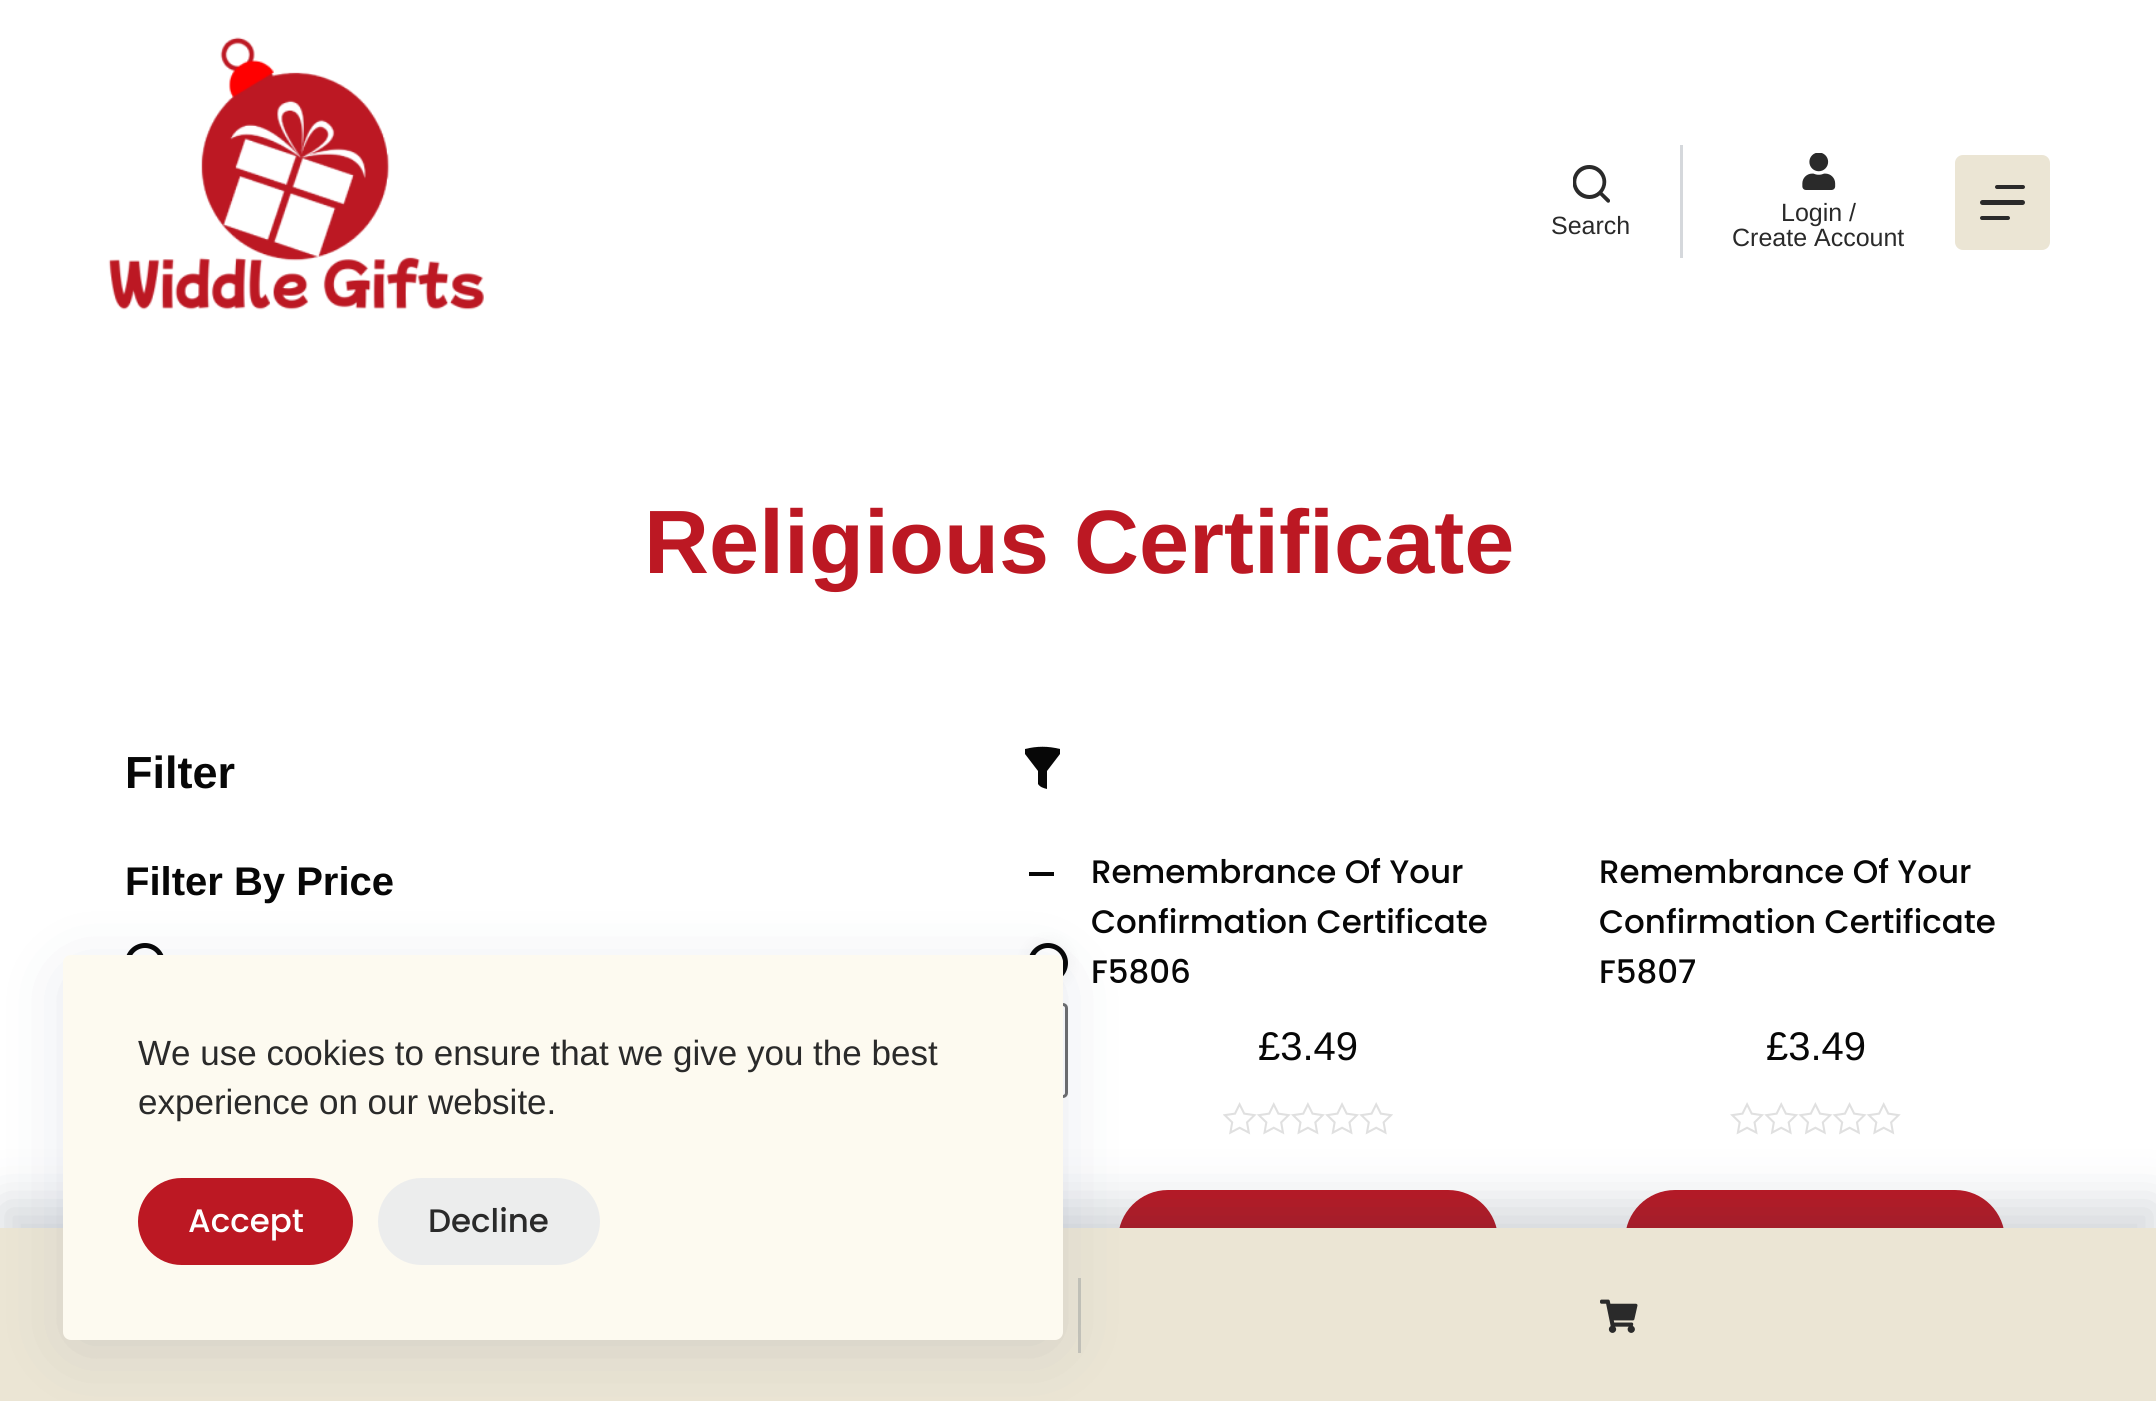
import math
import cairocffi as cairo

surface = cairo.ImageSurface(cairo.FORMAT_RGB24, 2156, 1401)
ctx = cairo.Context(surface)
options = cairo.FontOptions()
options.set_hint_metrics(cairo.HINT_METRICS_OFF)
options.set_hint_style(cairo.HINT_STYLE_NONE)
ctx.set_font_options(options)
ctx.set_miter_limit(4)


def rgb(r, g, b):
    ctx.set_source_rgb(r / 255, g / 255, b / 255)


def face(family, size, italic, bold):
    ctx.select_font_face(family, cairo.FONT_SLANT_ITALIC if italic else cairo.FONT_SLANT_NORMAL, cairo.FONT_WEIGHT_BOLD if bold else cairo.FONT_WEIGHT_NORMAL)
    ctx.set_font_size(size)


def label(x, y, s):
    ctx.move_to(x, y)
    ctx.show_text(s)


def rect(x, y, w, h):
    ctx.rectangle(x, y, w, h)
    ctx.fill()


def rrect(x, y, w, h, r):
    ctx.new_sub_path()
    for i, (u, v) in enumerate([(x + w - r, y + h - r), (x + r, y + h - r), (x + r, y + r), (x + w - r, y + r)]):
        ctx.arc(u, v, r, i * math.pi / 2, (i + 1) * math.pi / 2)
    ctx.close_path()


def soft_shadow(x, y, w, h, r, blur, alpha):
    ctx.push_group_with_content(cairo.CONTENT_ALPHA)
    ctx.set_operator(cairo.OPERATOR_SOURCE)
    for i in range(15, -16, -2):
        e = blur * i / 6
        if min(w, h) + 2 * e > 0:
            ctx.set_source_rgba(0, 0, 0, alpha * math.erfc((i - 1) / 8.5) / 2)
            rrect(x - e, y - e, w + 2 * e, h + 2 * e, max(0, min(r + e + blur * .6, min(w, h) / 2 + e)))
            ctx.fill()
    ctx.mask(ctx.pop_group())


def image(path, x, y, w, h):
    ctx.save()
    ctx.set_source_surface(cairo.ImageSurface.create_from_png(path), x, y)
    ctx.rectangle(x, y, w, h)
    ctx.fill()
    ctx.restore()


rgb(255, 255, 255)
ctx.paint()
image('image0.png', 108, 37, 376, 273)
image('image1.png', 1573, 165, 37, 38)
face('Liberation Sans', 25, 0, 0)
rgb(42, 42, 42)
label(1551, 234, 'Search')
rgb(213, 216, 220)
rect(1680, 145, 3, 113)
image('image2.png', 1802, 153, 34, 37)
rgb(42, 42, 42)
label(1781, 221, 'Login /')
label(1732, 246, 'Create Account')
rgb(235, 229, 212)
rrect(1955, 155, 95, 95, 8)
ctx.fill()
rgb(42, 42, 42)
rrect(1995, 185, 30, 4, 2)
ctx.fill()
rrect(1980, 200, 45, 5, 2.5)
ctx.fill()
rrect(1980, 216, 30, 4, 2)
ctx.fill()
face('Liberation Sans', 90, 0, 1)
rgb(188, 24, 35)
label(644, 573, 'Religious Certificate')
face('Liberation Sans', 45, 0, 1)
rgb(7, 7, 7)
label(125, 788, 'Filter')
ctx.new_path()
ctx.move_to(1025, 754)
ctx.line_to(1025, 749)
ctx.curve_to(1037, 746, 1048, 746, 1060, 749)
ctx.line_to(1060, 754)
ctx.line_to(1047, 771)
ctx.line_to(1047, 789)
ctx.curve_to(1043, 788, 1040, 787, 1038, 784)
ctx.line_to(1038, 771)
ctx.close_path()
ctx.fill()
face('Liberation Sans', 40, 0, 1)
label(125, 895, 'Filter By Price')
rect(1029, 872, 25, 4)
ctx.new_path()
ctx.arc(145, 963, 17.5, 0, 2 * math.pi)
ctx.set_line_width(5)
ctx.stroke()
rrect(646.5, 1004.5, 420, 92, 3.5)
rgb(110, 110, 110)
ctx.set_line_width(3)
ctx.stroke()
rgb(0, 0, 0)
soft_shadow(1028, 943, 40, 40, 20, 7.5, 0.05)
rgb(255, 255, 255)
ctx.arc(1048, 963, 17.5, 0, 2 * math.pi)
ctx.fill_preserve()
rgb(7, 7, 7)
ctx.set_line_width(5)
ctx.stroke()
face('Poppins Medium', 32.5, 0, 0)
label(1091, 883, 'Remembrance Of Your')
label(1091, 933, 'Confirmation Certificate')
label(1091, 983, 'F5806')
face('Liberation Sans', 40, 0, 0)
label(1258, 1060, '£3.49')
image('image3.png', 1223, 1102, 170, 33)
rgb(188, 24, 35)
rrect(1118, 1190, 380, 105, 50)
ctx.fill()
face('Poppins Medium', 32.5, 0, 0)
rgb(7, 7, 7)
label(1599, 883, 'Remembrance Of Your')
label(1599, 933, 'Confirmation Certificate')
label(1599, 983, 'F5807')
face('Liberation Sans', 40, 0, 0)
label(1766, 1060, '£3.49')
image('image4.png', 1730, 1102, 171, 33)
rgb(188, 24, 35)
rrect(1625, 1190, 380, 105, 50)
ctx.fill()
rgb(44, 62, 80)
soft_shadow(0, 1203, 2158, 175, 0, 25, 0.2)
rgb(235, 229, 212)
rect(0, 1228, 2156, 173)
rgb(197, 196, 186)
rect(1078, 1278, 3, 75)
rgb(34, 56, 101)
soft_shadow(75, 980, 975, 360, 0, 37.5, 0.15)
rgb(253, 250, 240)
rrect(63, 955, 1000, 385, 8)
ctx.fill()
face('Liberation Sans', 35, 0, 0)
rgb(42, 42, 42)
label(138, 1065, 'We use cookies to ensure that we give you the best')
label(138, 1114, 'experience on our website.')
rgb(188, 24, 35)
rrect(138, 1178, 215, 87, 43.5)
ctx.fill()
face('Poppins Medium', 32.5, 0, 0)
rgb(255, 255, 255)
label(188, 1232, 'Accept')
rgb(236, 237, 237)
rrect(378, 1178, 222, 87, 43.5)
ctx.fill()
rgb(42, 42, 42)
label(428, 1232, 'Decline')
image('image5.png', 1600, 1299, 38, 34)
surface.write_to_png('render.png')
